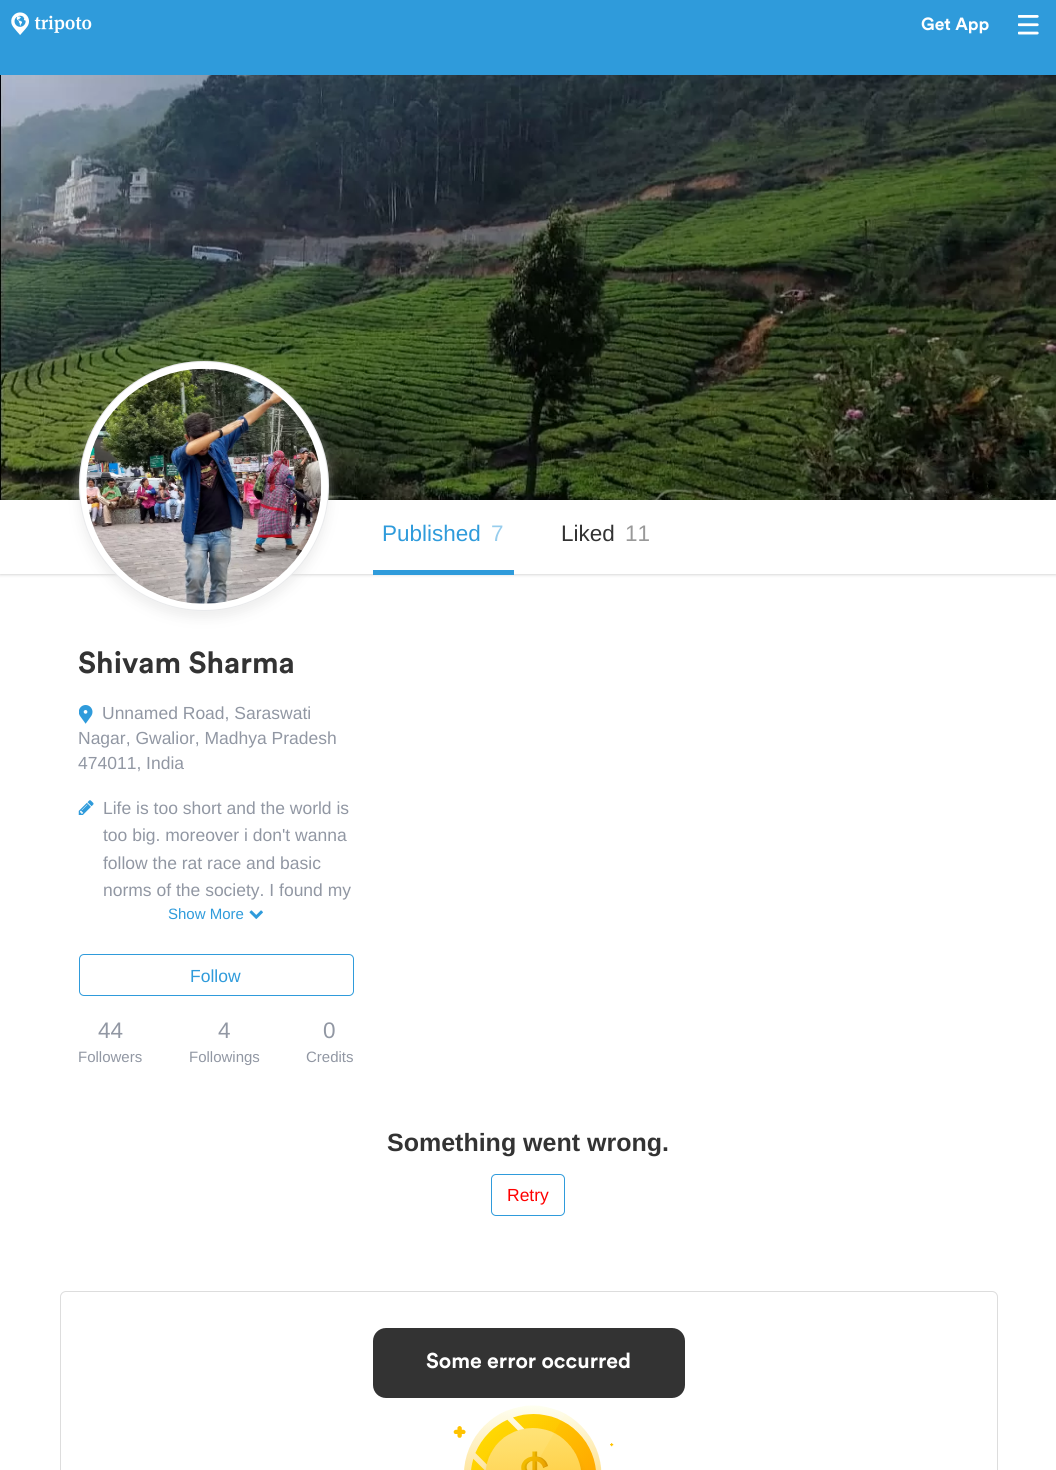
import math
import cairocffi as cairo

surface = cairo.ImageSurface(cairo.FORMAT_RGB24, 1056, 1470)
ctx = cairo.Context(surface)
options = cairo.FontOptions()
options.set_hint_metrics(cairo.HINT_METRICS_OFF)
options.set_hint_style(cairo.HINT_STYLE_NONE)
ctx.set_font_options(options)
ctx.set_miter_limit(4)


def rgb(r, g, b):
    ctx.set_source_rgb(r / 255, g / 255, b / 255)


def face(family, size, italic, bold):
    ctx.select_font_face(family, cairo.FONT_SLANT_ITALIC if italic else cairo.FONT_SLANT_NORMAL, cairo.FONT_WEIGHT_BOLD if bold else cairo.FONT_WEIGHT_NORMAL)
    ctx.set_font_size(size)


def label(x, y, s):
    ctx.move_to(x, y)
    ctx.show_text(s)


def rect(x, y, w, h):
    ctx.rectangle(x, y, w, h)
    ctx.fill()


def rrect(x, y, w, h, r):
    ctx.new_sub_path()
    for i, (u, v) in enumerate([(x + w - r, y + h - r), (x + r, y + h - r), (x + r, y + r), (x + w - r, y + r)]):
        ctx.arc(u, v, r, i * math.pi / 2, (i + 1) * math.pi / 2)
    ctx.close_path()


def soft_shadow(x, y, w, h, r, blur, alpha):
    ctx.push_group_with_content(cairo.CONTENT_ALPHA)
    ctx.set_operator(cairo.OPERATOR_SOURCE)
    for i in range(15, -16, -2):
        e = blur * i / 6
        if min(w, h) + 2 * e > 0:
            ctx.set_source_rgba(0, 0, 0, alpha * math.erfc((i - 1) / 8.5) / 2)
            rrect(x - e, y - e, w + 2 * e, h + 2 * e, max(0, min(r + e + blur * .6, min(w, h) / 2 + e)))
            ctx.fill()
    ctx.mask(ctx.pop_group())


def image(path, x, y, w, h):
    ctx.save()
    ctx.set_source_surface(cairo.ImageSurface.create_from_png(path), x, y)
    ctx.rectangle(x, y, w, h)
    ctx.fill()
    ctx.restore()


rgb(255, 255, 255)
ctx.paint()
rgb(47, 155, 219)
rect(0, 0, 1056, 75)
image('image0.png', 11, 12, 81, 23)
face('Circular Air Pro', 17.5, 0, 1)
rgb(255, 255, 255)
label(921, 30, 'Get App')
image('image1.png', 1018, 15, 21, 20)
rgb(0, 0, 0)
soft_shadow(0, 500, 1056, 74, 0, 2, 0.25)
image('image2.png', 0, 75, 1056, 425)
rgb(255, 255, 255)
rect(0, 500, 1056, 74)
rgb(47, 155, 219)
rect(373, 570, 141, 5)
face('Liberation Sans', 22.5, 0, 0)
label(382, 541, 'Published')
rgb(151, 205, 237)
label(491, 541, '7')
rgb(51, 51, 51)
label(561, 541, 'Liked')
rgb(153, 153, 153)
label(625, 541, '11')
rgb(221, 221, 221)
soft_shadow(79, 368, 250, 250, 125, 6, 0.5)
rgb(255, 255, 255)
ctx.arc(204, 486, 125, 0, 2 * math.pi)
ctx.fill()
ctx.arc(204, 486, 124.5, 0, 2 * math.pi)
ctx.set_source_rgba(0.569, 0.592, 0.639, 0.2)
ctx.set_line_width(1)
ctx.stroke()
image('image3.png', 86, 368, 236, 236)
face('Circular Air Pro', 30, 0, 1)
rgb(51, 51, 51)
label(78, 673, 'Shivam Sharma')
image('image4.png', 79, 705, 14, 19)
face('Liberation Sans', 17.5, 0, 0)
rgb(145, 151, 163)
label(102, 719, 'Unnamed Road, Saraswati')
label(78, 744, 'Nagar, Gwalior, Madhya Pradesh')
label(78, 769, '474011, India')
image('image5.png', 78, 800, 16, 15)
label(103, 814, 'Life is too short and the world is')
label(103, 841, 'too big. moreover i don\'t wanna')
label(103, 869, 'follow the rat race and basic')
label(103, 896, 'norms of the society. I found my')
face('Liberation Sans', 15, 0, 0)
rgb(47, 155, 219)
label(168, 919, 'Show More')
image('image6.png', 249, 910, 14, 9)
rrect(79.5, 954.5, 274, 41, 4.5)
ctx.stroke()
face('Liberation Sans', 17.5, 0, 0)
label(190, 982, 'Follow')
face('Liberation Sans', 22.5, 0, 0)
rgb(145, 151, 163)
label(98, 1038, '44')
face('Liberation Sans', 15, 0, 0)
label(78, 1062, 'Followers')
face('Liberation Sans', 22.5, 0, 0)
label(218, 1038, '4')
face('Liberation Sans', 15, 0, 0)
label(189, 1062, 'Followings')
face('Liberation Sans', 22.5, 0, 0)
label(323, 1038, '0')
face('Liberation Sans', 15, 0, 0)
label(306, 1062, 'Credits')
face('Liberation Sans', 25, 0, 1)
rgb(51, 51, 51)
label(387, 1151, 'Something went wrong.')
rrect(491.5, 1174.5, 73, 41, 4.5)
rgb(47, 155, 219)
ctx.stroke()
face('Liberation Sans', 17.5, 0, 0)
rgb(255, 0, 0)
label(507, 1201, 'Retry')
rrect(60.5, 1291.5, 937, 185, 5.5)
rgb(221, 221, 221)
ctx.stroke()
image('image7.png', 453, 1405, 161, 65)
rgb(51, 51, 51)
rrect(373, 1328, 312, 70, 13)
ctx.fill()
face('Circular Air Pro', 21.25, 0, 1)
rgb(255, 255, 255)
label(426, 1368, 'Some error occurred')
surface.write_to_png('render.png')
